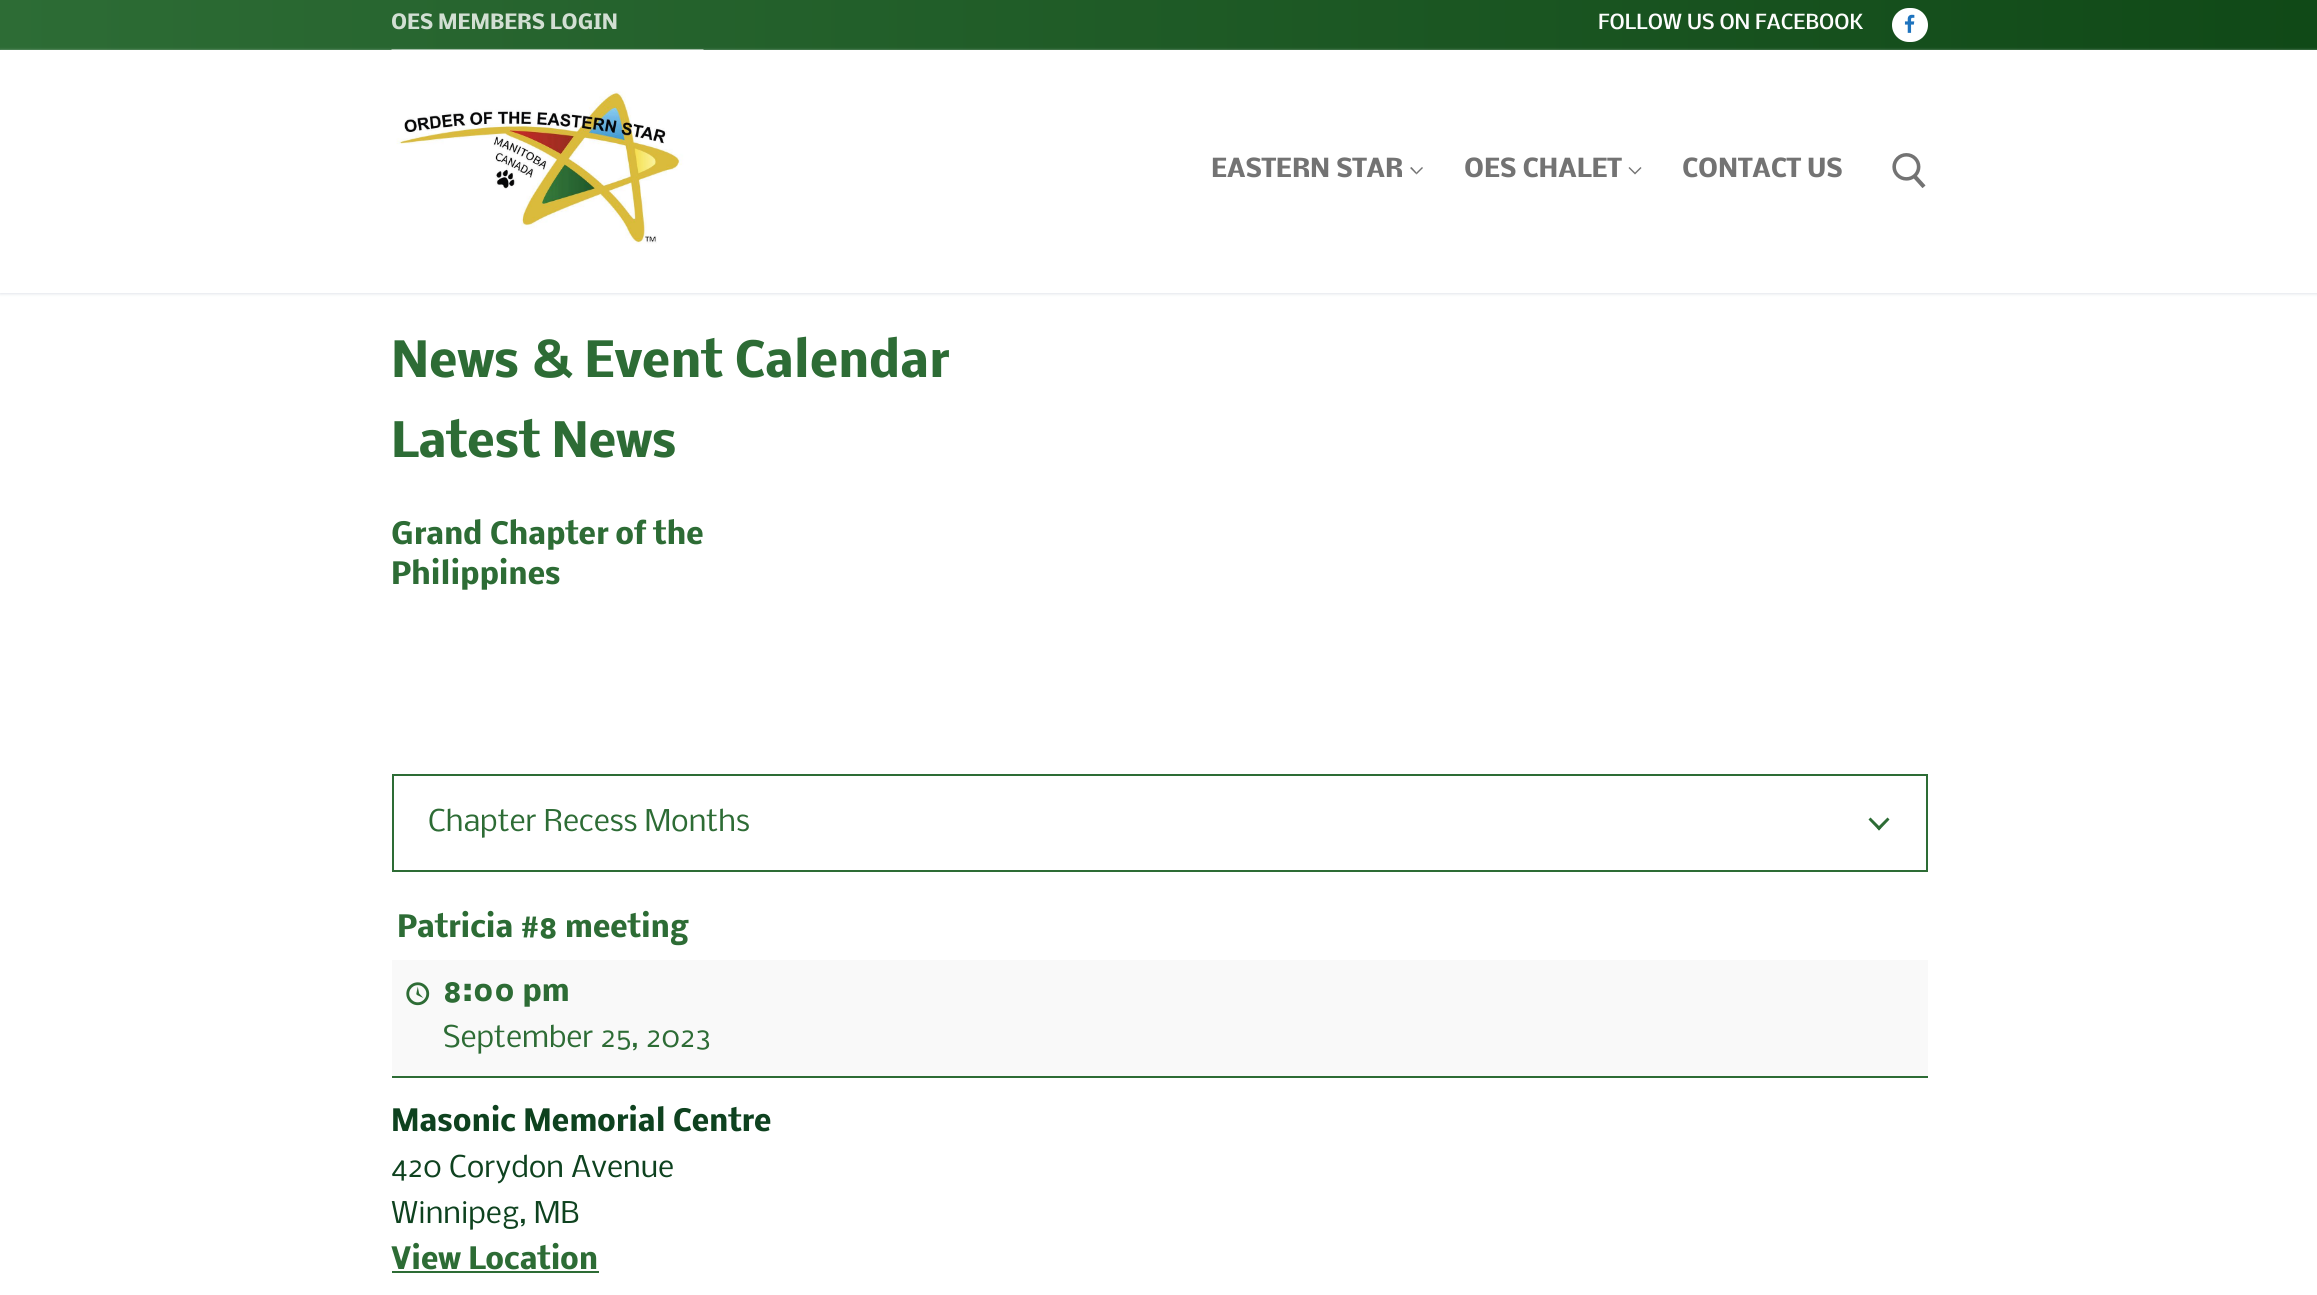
import math
import cairocffi as cairo

surface = cairo.ImageSurface(cairo.FORMAT_RGB24, 2317, 1295)
ctx = cairo.Context(surface)
options = cairo.FontOptions()
options.set_hint_metrics(cairo.HINT_METRICS_OFF)
options.set_hint_style(cairo.HINT_STYLE_NONE)
ctx.set_font_options(options)
ctx.set_miter_limit(4)


def rgb(r, g, b):
    ctx.set_source_rgb(r / 255, g / 255, b / 255)


def face(family, size, italic, bold):
    ctx.select_font_face(family, cairo.FONT_SLANT_ITALIC if italic else cairo.FONT_SLANT_NORMAL, cairo.FONT_WEIGHT_BOLD if bold else cairo.FONT_WEIGHT_NORMAL)
    ctx.set_font_size(size)


def label(x, y, s):
    ctx.move_to(x, y)
    ctx.show_text(s)


def rect(x, y, w, h):
    ctx.rectangle(x, y, w, h)
    ctx.fill()


def rrect(x, y, w, h, r):
    ctx.new_sub_path()
    for i, (u, v) in enumerate([(x + w - r, y + h - r), (x + r, y + h - r), (x + r, y + r), (x + w - r, y + r)]):
        ctx.arc(u, v, r, i * math.pi / 2, (i + 1) * math.pi / 2)
    ctx.close_path()


def soft_shadow(x, y, w, h, r, blur, alpha):
    ctx.push_group_with_content(cairo.CONTENT_ALPHA)
    ctx.set_operator(cairo.OPERATOR_SOURCE)
    for i in range(15, -16, -2):
        e = blur * i / 6
        if min(w, h) + 2 * e > 0:
            ctx.set_source_rgba(0, 0, 0, alpha * math.erfc((i - 1) / 8.5) / 2)
            rrect(x - e, y - e, w + 2 * e, h + 2 * e, max(0, min(r + e + blur * .6, min(w, h) / 2 + e)))
            ctx.fill()
    ctx.mask(ctx.pop_group())


def image(path, x, y, w, h):
    ctx.save()
    ctx.set_source_surface(cairo.ImageSurface.create_from_png(path), x, y)
    ctx.rectangle(x, y, w, h)
    ctx.fill()
    ctx.restore()


rgb(255, 255, 255)
ctx.paint()
gradient = cairo.LinearGradient(0, 25, 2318, 25)
gradient.add_color_stop_rgba(0, 0.176, 0.424, 0.208, 1)
gradient.add_color_stop_rgba(1, 0.063, 0.286, 0.09, 1)
ctx.set_source(gradient)
rect(0, 0, 2317, 50)
face('Nobile', 19.5, 0, 1)
rgb(210, 223, 211)
label(391, 29, 'OES MEMBERS LOGIN')
face('Nobile Medium', 19.5, 0, 0)
rgb(253, 253, 253)
label(1598, 29, 'FOLLOW US ON FACEBOOK')
rgb(255, 255, 255)
rrect(1892, 8, 36, 34, 17)
ctx.fill()
image('image0.png', 1904, 14, 11, 19)
rgb(225, 229, 234)
soft_shadow(0, 51, 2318, 243, 0, 1.5, 1)
rgb(255, 255, 255)
rect(0, 50, 2317, 243)
image('image1.png', 391, 49, 313, 195)
face('Nobile', 24.25, 0, 1)
rgb(115, 115, 115)
label(1211, 177, 'EASTERN STAR')
ctx.new_path()
ctx.move_to(1416.5, 174.5)
ctx.line_to(1410, 168)
ctx.line_to(1411.5, 167)
ctx.line_to(1416.5, 172.5)
ctx.close_path()
ctx.fill()
ctx.set_source_rgba(0, 0, 0, 0.55)
ctx.new_path()
ctx.move_to(1423, 168)
ctx.line_to(1416.5, 174.5)
ctx.line_to(1416.5, 172.5)
ctx.line_to(1422, 167)
ctx.close_path()
ctx.fill()
rgb(115, 115, 115)
label(1464, 177, 'OES CHALET')
ctx.new_path()
ctx.move_to(1635, 174.5)
ctx.line_to(1628.5, 168)
ctx.line_to(1629.5, 167)
ctx.line_to(1635, 172.5)
ctx.close_path()
ctx.move_to(1641.5, 168)
ctx.line_to(1635, 174.5)
ctx.line_to(1635, 172.5)
ctx.line_to(1640.5, 167)
ctx.close_path()
ctx.fill()
label(1682, 177, 'CONTACT US')
image('image2.png', 1892, 153, 34, 35)
face('Nobile', 46.1, 0, 1)
rgb(45, 108, 53)
label(391, 377, 'News & Event Calendar')
face('Nobile', 45, 0, 1)
label(391, 457, 'Latest News')
face('Nobile', 28.5, 0, 1)
label(391, 544, 'Grand Chapter of the')
label(391, 584, 'Philippines')
ctx.rectangle(393, 775, 1534, 96)
ctx.stroke()
face('Nobile', 28.5, 0, 0)
label(428, 831, 'Chapter Recess Months')
ctx.new_path()
ctx.move_to(1887.5, 817.5)
ctx.line_to(1889.5, 819.5)
ctx.line_to(1879, 830.5)
ctx.line_to(1877, 828)
ctx.close_path()
ctx.fill()
ctx.new_path()
ctx.move_to(1870.5, 817.5)
ctx.line_to(1881, 828)
ctx.line_to(1879, 830.5)
ctx.line_to(1868.5, 819.5)
ctx.close_path()
ctx.fill()
face('Nobile', 28.5, 0, 1)
label(397, 937, 'Patricia #8 meeting')
rgb(249, 249, 249)
rect(392, 960, 1536, 116)
rgb(45, 108, 53)
rect(392, 1076, 1536, 2)
image('image3.png', 406, 982, 24, 24)
label(443, 1001, '8:00 pm')
face('Nobile', 28.5, 0, 0)
label(443, 1047, 'September 25, 2023')
face('Nobile', 28.5, 0, 1)
rgb(14, 66, 31)
label(391, 1131, 'Masonic Memorial Centre')
face('Nobile', 28.5, 0, 0)
label(391, 1177, '420 Corydon Avenue')
label(391, 1223, 'Winnipeg, MB')
face('Nobile', 28.5, 0, 1)
rgb(45, 108, 53)
label(391, 1269, 'View Location')
rect(392, 1271, 207, 2)
surface.write_to_png('render.png')
